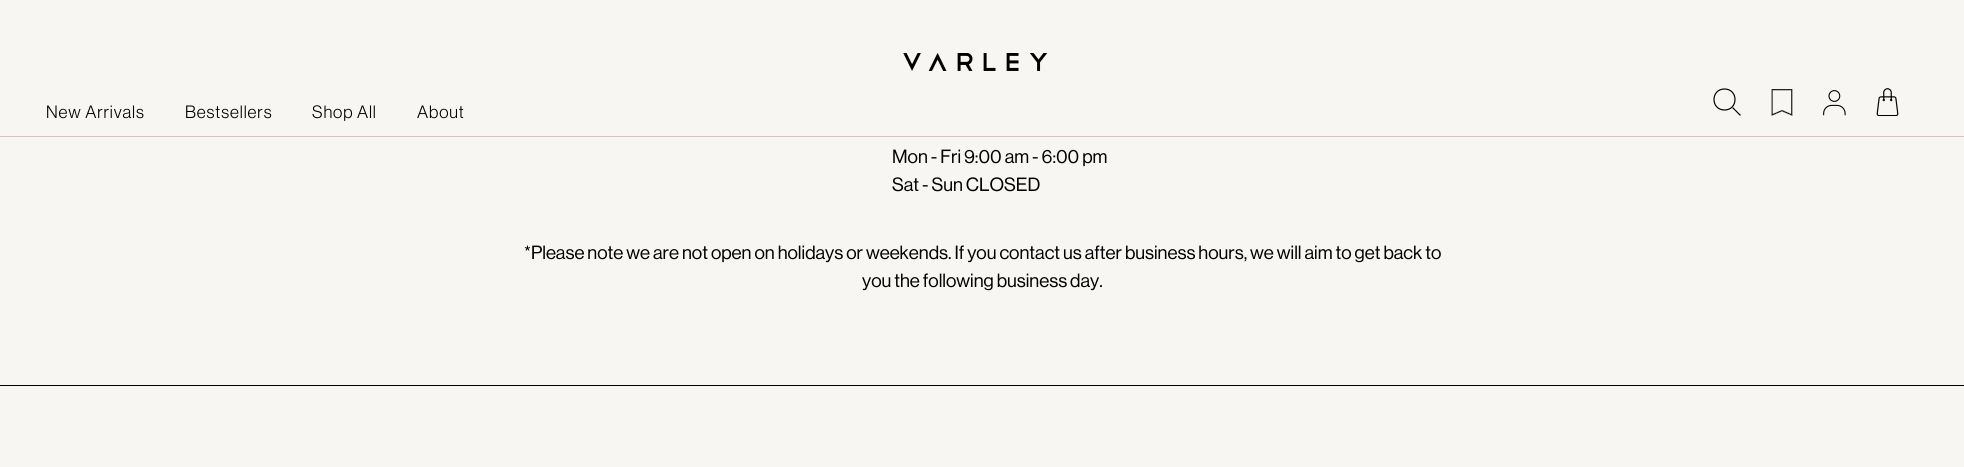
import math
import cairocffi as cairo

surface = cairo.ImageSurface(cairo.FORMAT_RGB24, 1964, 467)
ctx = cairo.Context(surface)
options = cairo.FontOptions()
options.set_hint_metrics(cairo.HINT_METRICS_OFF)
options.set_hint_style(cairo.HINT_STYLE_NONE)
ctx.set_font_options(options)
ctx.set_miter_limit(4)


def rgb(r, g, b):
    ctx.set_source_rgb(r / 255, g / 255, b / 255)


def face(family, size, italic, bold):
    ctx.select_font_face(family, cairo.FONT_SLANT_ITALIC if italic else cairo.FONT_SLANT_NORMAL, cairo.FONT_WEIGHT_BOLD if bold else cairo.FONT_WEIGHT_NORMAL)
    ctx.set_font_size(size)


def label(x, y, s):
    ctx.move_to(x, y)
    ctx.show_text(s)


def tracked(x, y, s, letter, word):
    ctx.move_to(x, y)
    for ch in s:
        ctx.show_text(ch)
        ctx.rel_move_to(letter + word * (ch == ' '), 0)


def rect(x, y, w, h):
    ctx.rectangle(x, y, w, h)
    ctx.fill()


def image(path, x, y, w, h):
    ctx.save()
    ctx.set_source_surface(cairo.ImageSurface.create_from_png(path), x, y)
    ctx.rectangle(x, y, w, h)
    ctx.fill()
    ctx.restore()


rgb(247, 246, 242)
ctx.paint()
rgb(207, 199, 192)
rect(0, 136, 1964, 1)
image('image0.png', 903, 53, 145, 18)
face('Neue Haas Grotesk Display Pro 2', 17.5, 0, 0)
rgb(0, 0, 0)
tracked(46, 118, 'New Arrivals', 0.9, 0)
tracked(185, 118, 'Bestsellers', 0.9, 0)
tracked(312, 118, 'Shop All', 0.9, 0)
tracked(417, 118, 'About', 0.9, 0)
ctx.new_path()
ctx.move_to(1733, 108)
ctx.line_to(1740, 115)
ctx.set_line_width(1.2)
ctx.set_line_cap(cairo.LINE_CAP_SQUARE)
ctx.set_line_join(cairo.LINE_JOIN_ROUND)
ctx.stroke()
ctx.new_path()
ctx.move_to(1724.5, 110)
ctx.curve_to(1738.5, 110, 1738.5, 89, 1724.5, 89)
ctx.curve_to(1710.5, 89, 1710.5, 110, 1724.5, 110)
ctx.close_path()
ctx.set_line_cap(cairo.LINE_CAP_ROUND)
ctx.stroke()
image('image1.png', 1771, 89, 22, 27)
image('image2.png', 1823, 90, 23, 26)
image('image3.png', 1876, 88, 23, 28)
face('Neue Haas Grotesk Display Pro', 18.75, 0, 0)
label(892, 163, 'Mon - Fri 9:00 am - 6:00 pm')
label(892, 191, 'Sat - Sun CLOSED')
label(524, 259, '*Please note we are not open on holidays or weekends. If you contact us after business hours, we will aim to get back to')
label(862, 287, 'you the following business day.')
rect(0, 385, 1964, 1)
surface.write_to_png('render.png')
